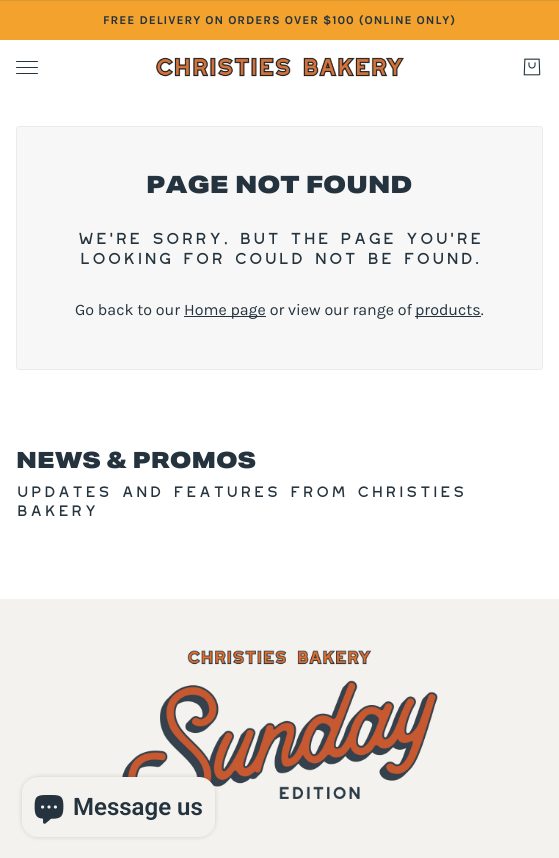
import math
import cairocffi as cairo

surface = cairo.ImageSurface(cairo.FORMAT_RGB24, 559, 858)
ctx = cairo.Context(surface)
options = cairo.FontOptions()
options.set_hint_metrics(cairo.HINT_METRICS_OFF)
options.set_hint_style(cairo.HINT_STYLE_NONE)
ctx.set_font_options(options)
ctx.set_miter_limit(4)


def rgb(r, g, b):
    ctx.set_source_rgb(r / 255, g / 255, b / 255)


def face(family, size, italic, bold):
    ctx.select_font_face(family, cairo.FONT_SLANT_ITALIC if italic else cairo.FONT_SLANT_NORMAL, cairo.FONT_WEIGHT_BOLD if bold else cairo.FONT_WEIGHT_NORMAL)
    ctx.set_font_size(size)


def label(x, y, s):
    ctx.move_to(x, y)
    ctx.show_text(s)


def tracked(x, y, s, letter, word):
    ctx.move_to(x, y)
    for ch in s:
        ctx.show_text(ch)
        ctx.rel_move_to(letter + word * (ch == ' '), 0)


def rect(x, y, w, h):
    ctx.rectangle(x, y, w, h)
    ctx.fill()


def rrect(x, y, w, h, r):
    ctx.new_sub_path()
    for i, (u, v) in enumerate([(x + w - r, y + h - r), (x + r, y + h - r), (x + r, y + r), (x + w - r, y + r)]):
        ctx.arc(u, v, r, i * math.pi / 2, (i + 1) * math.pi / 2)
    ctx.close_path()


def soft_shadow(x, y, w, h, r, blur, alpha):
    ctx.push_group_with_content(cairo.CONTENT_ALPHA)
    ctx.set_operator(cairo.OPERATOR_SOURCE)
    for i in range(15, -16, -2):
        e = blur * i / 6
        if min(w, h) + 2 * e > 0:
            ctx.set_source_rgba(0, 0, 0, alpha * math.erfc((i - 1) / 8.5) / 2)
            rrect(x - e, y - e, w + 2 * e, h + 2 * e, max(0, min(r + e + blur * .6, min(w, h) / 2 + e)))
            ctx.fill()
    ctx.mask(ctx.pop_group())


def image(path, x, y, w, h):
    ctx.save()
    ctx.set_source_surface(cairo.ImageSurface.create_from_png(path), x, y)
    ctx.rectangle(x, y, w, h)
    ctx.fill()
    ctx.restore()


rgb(255, 255, 255)
ctx.paint()
rgb(242, 162, 45)
rect(0, 1, 559, 39)
rgb(221, 151, 47)
rect(0, 0, 559, 1)
face('Karla', 12, 0, 1)
rgb(36, 51, 61)
tracked(103, 24, 'FREE DELIVERY ON ORDERS OVER $100 (ONLINE ONLY)', 1, 0)
rrect(16, 61, 22, 1, 0.5)
ctx.fill()
rrect(16, 67, 22, 1, 0.5)
ctx.fill()
rrect(16, 73, 22, 1, 0.5)
ctx.fill()
image('image0.png', 156, 57, 248, 20)
image('image1.png', 523, 58, 18, 18)
rgb(247, 247, 247)
rrect(16.5, 126.5, 526, 243, 2.5)
ctx.fill_preserve()
rgb(234, 234, 234)
ctx.set_line_width(1)
ctx.stroke()
face('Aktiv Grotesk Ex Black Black', 24, 0, 0)
rgb(36, 51, 61)
label(146, 193, 'PAGE NOT FOUND')
face('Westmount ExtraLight', 20, 0, 0)
label(77, 244, 'WE\'RE SORRY, BUT THE PAGE YOU\'RE')
label(79, 264, 'LOOKING FOR COULD NOT BE FOUND.')
face('Karla', 16, 0, 0)
label(75, 315, 'Go back to our')
rect(184, 316, 82, 1)
label(184, 315, 'Home page or view our range of')
rect(415, 316, 66, 1)
label(415, 315, 'products.')
face('Aktiv Grotesk Ex Black Black', 22.5, 0, 0)
label(16, 468, 'NEWS & PROMOS')
face('Westmount ExtraLight', 19, 0, 0)
tracked(16, 497, 'UPDATES AND FEATURES FROM CHRISTIES', 0.45, 0)
tracked(16, 516, 'BAKERY', 0.45, 0)
rgb(244, 242, 239)
rect(0, 599, 559, 259)
image('image2.png', 122, 650, 316, 149)
rgb(0, 0, 0)
soft_shadow(22, 777, 193, 60, 16, 2.5, 0.15)
rgb(244, 242, 239)
rrect(22, 777, 193, 60, 16)
ctx.fill()
image('image3.png', 34, 795, 30, 29)
face('Roboto SemiBold', 24, 0, 0)
rgb(36, 51, 61)
label(73, 815, 'Message us')
surface.write_to_png('render.png')
